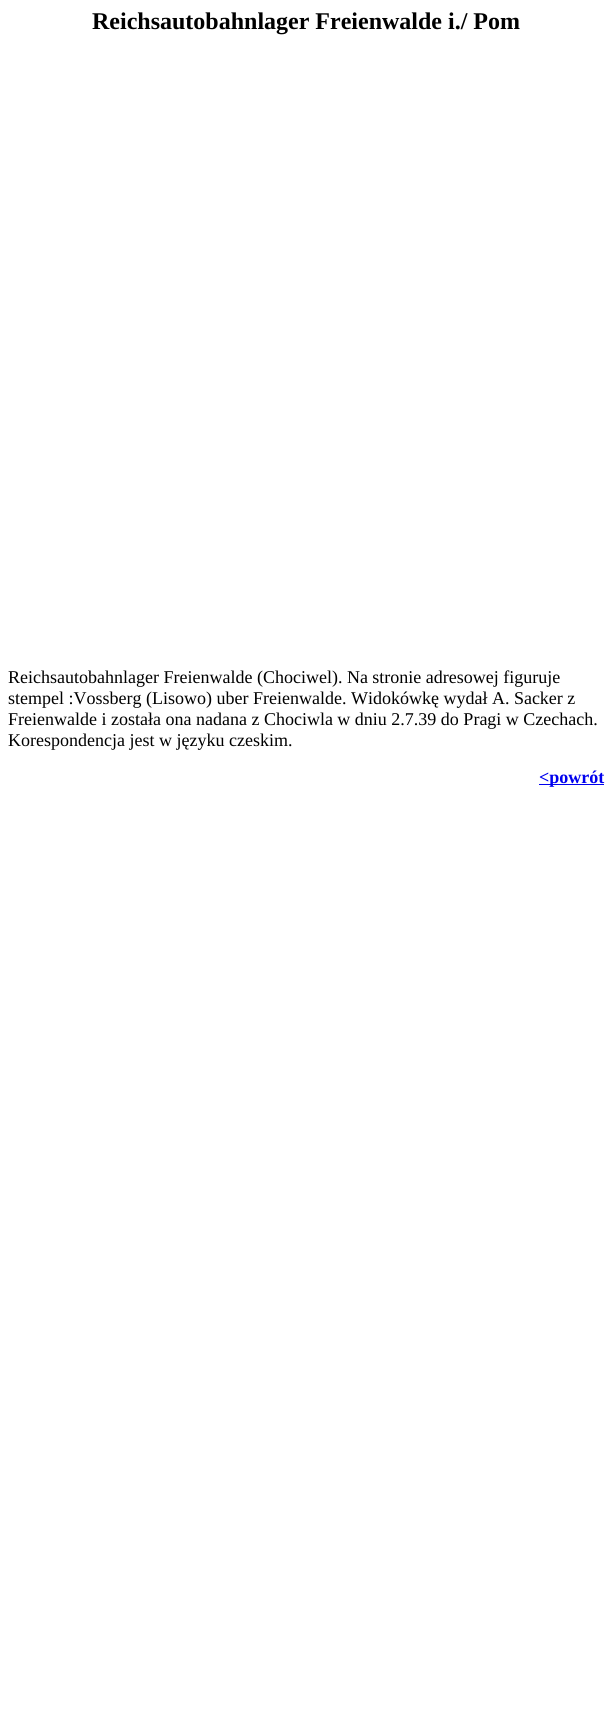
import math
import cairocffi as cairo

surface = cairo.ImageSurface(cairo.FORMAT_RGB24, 612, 1721)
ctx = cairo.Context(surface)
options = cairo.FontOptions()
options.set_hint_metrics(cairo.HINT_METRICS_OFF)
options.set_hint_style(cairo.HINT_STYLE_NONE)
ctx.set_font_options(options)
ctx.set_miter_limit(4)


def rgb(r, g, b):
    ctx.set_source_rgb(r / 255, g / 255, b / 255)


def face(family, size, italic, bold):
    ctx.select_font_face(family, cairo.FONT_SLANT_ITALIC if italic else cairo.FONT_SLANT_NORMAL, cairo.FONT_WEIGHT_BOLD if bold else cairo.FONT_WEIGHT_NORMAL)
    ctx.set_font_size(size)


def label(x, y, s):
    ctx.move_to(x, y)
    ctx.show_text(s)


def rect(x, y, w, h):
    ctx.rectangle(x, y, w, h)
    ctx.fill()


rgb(255, 255, 255)
ctx.paint()
face('Liberation Serif', 24, 0, 1)
rgb(0, 0, 0)
label(92, 29, 'Reichsautobahnlager Freienwalde i./ Pom')
face('Liberation Serif', 18, 0, 0)
label(8, 683, 'Reichsautobahnlager Freienwalde (Chociwel). Na stronie adresowej figuruje')
label(8, 704, 'stempel :Vossberg (Lisowo) uber Freienwalde. Widokówkę wydał A. Sacker z')
label(8, 725, 'Freienwalde i została ona nadana z Chociwla w dniu 2.7.39 do Pragi w Czechach.')
label(8, 746, 'Korespondencja jest w języku czeskim.')
rgb(0, 0, 238)
rect(539, 784, 65, 1)
face('Liberation Serif', 18, 0, 1)
label(539, 783, '<powrót')
surface.write_to_png('render.png')
